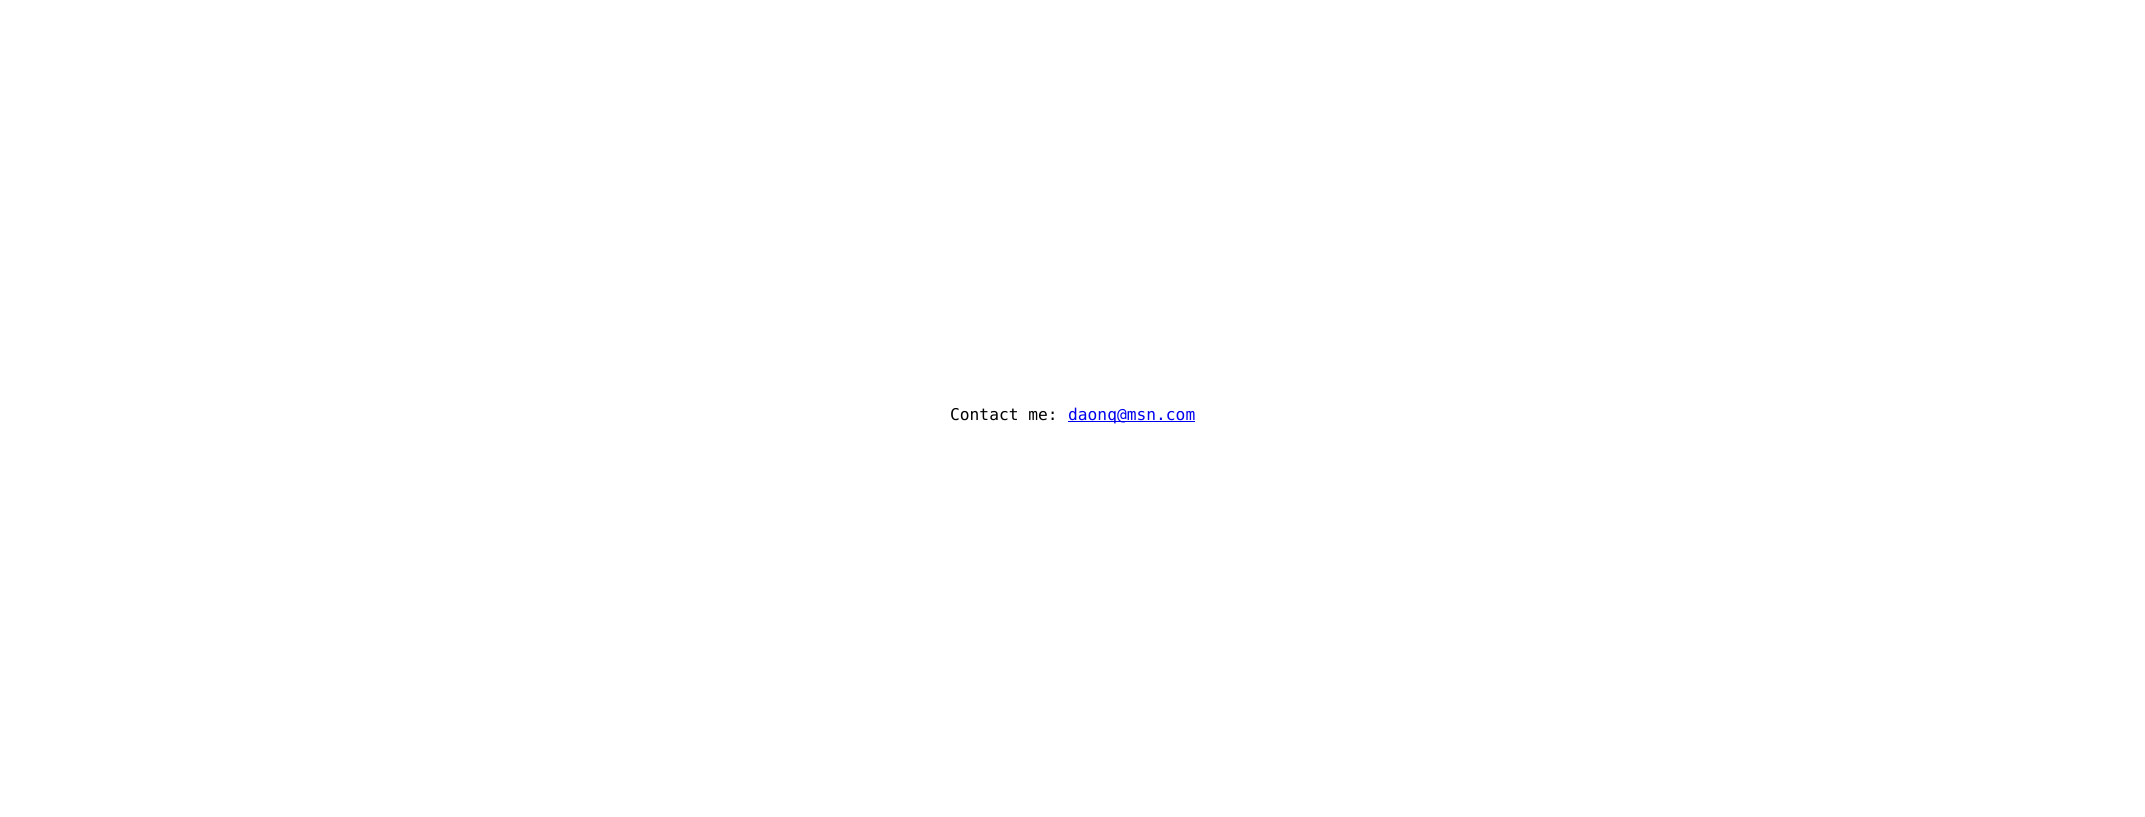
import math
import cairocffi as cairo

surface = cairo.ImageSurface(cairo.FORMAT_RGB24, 2145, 817)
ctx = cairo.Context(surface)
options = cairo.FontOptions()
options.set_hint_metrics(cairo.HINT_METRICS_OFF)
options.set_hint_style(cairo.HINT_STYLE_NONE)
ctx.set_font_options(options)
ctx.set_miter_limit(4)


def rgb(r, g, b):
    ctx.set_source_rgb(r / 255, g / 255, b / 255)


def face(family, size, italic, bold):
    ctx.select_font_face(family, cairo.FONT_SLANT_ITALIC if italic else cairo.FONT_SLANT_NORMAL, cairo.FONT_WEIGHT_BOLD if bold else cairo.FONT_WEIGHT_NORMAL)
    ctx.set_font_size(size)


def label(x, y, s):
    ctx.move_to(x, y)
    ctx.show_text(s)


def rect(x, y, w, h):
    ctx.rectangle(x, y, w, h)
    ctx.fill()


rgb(255, 255, 255)
ctx.paint()
face('DejaVu Sans Mono', 16.25, 0, 0)
rgb(0, 0, 0)
label(950, 420, 'Contact me:')
rgb(0, 0, 238)
rect(1068, 421, 127, 1)
label(1068, 420, 'daonq@msn.com')
surface.write_to_png('render.png')
